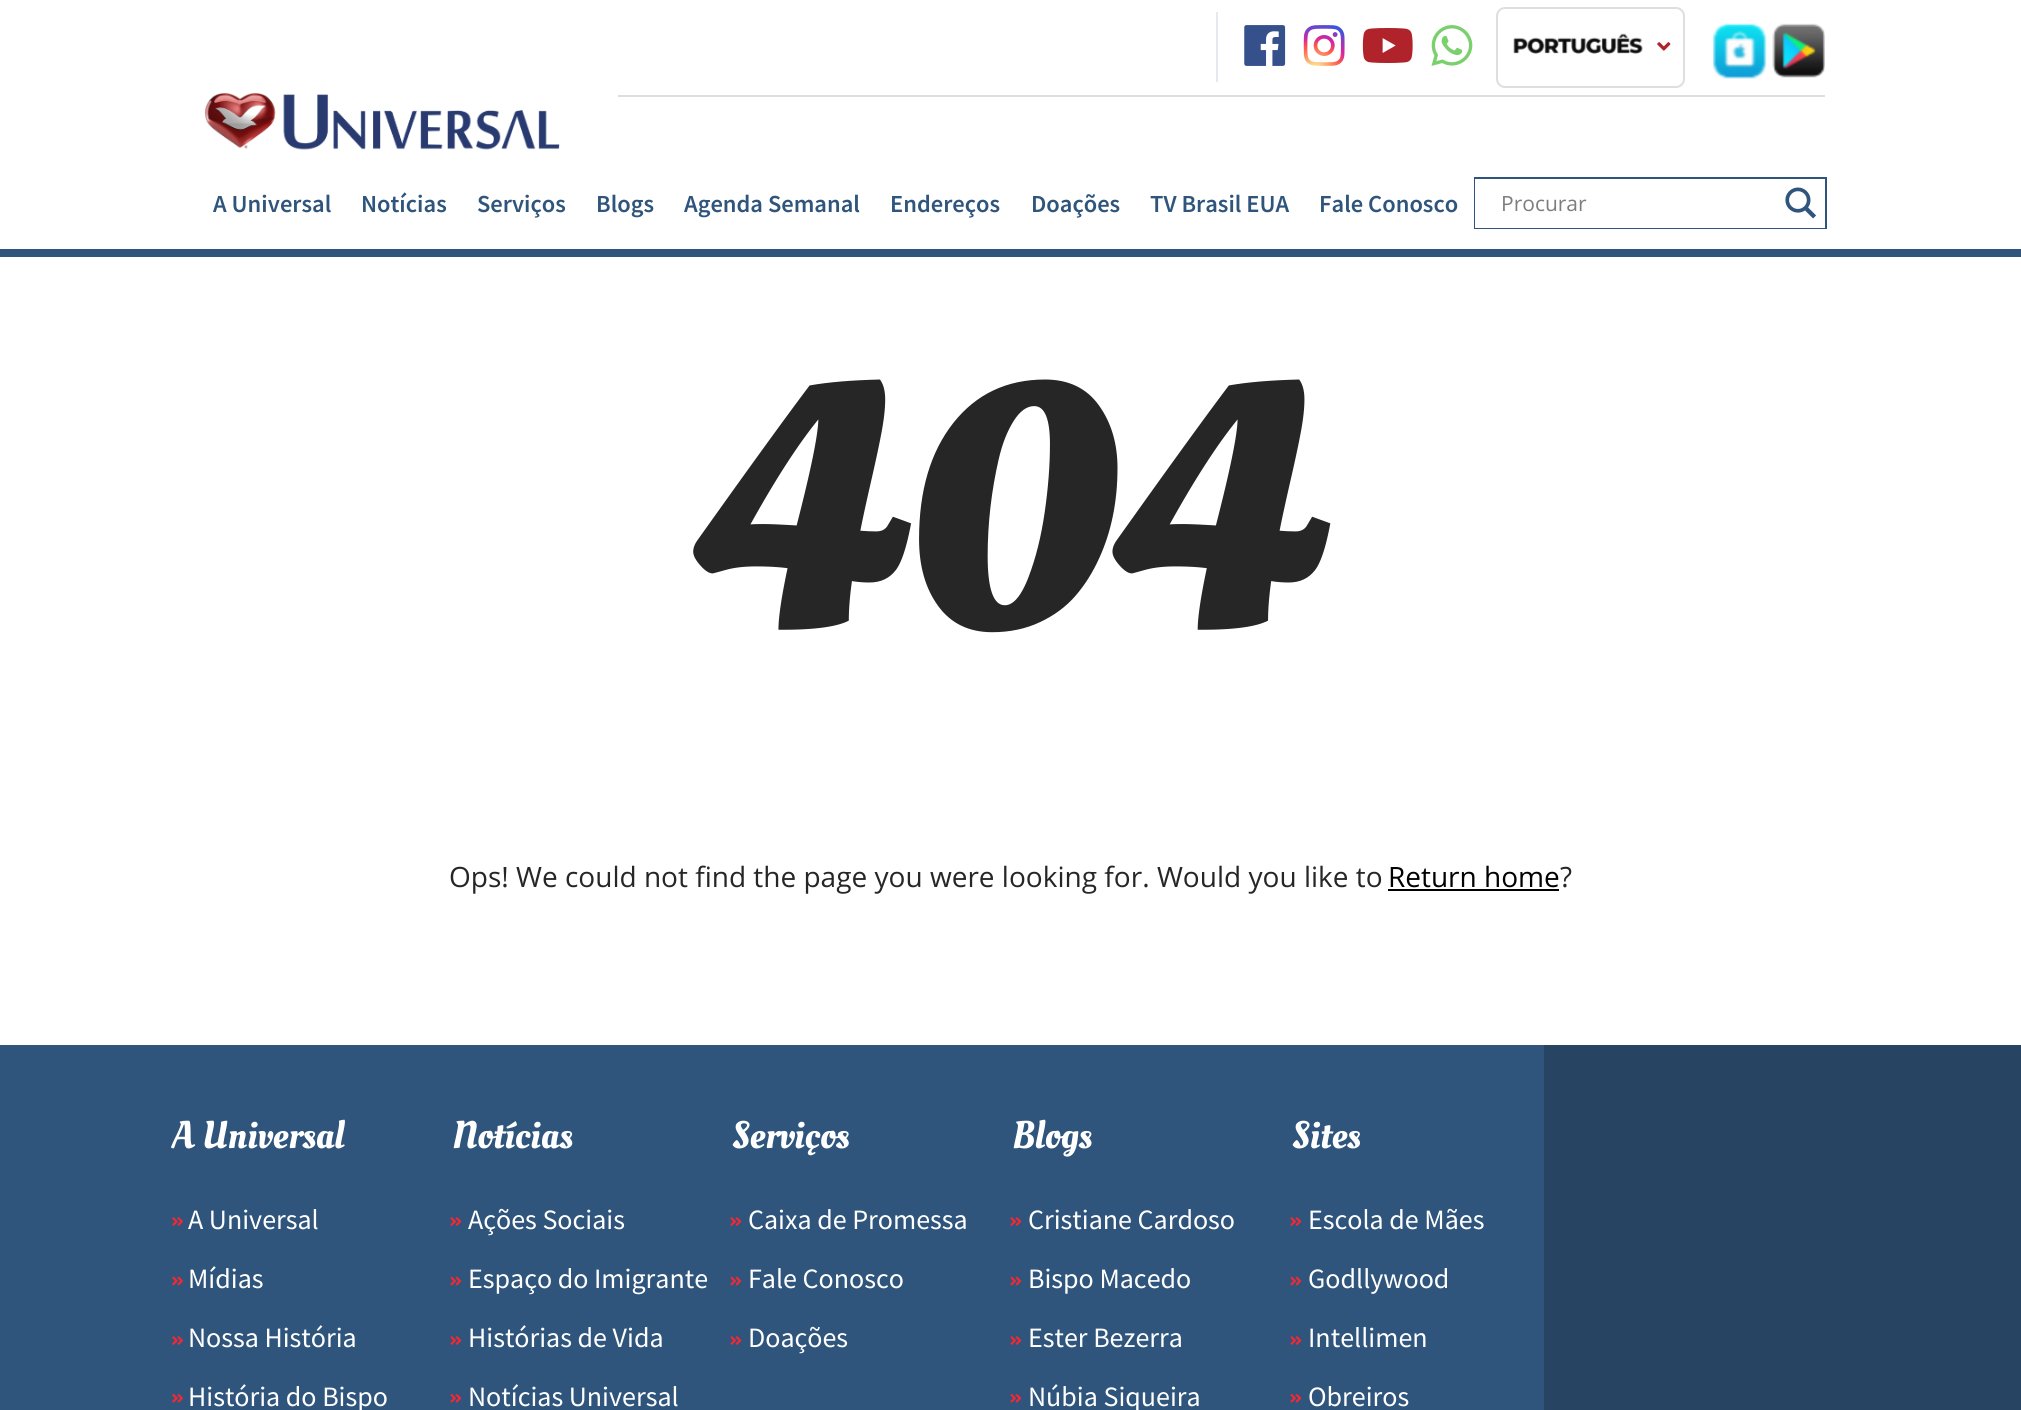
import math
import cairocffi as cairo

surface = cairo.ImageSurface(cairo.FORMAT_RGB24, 2021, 1410)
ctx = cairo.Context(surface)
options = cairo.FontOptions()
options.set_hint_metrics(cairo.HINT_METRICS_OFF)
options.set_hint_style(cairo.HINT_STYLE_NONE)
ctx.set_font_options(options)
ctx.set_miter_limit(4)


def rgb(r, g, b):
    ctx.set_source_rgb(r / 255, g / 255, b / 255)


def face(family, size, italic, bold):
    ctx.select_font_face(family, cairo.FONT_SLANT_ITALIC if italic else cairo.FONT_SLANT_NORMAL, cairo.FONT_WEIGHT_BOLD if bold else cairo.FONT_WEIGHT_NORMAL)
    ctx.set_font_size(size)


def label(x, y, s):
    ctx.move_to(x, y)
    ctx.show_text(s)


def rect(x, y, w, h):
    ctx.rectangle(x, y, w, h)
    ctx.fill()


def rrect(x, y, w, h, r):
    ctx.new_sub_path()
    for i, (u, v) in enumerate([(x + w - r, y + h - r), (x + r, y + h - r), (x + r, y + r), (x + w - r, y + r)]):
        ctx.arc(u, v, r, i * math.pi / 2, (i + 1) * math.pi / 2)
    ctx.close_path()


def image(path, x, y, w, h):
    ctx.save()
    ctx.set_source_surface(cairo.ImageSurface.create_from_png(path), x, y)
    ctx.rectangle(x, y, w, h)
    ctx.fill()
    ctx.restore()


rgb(255, 255, 255)
ctx.paint()
rgb(47, 85, 124)
rect(0, 249, 2021, 8)
rgb(222, 222, 222)
rect(618, 95, 1207, 2)
rgb(230, 234, 238)
rect(1216, 12, 2, 70)
image('image0.png', 1244, 25, 42, 41)
image('image1.png', 1303, 25, 42, 41)
image('image2.png', 1362, 28, 51, 35)
image('image3.png', 1431, 25, 42, 41)
rrect(1497, 8, 187, 79, 8)
rgb(222, 222, 222)
ctx.stroke()
image('image4.png', 1513, 33, 130, 21)
image('image5.png', 1657, 42, 14, 9)
image('image6.png', 1713, 23, 54, 56)
image('image7.png', 1772, 23, 53, 55)
image('image8.png', 204, 92, 356, 58)
face('Source Sans Pro SemiBold', 24.5, 0, 0)
rgb(47, 85, 124)
label(213, 212, 'A Universal')
label(361, 212, 'Notícias')
label(477, 212, 'Serviços')
label(596, 212, 'Blogs')
label(684, 212, 'Agenda Semanal')
label(890, 212, 'Endereços')
label(1031, 212, 'Doações')
label(1150, 212, 'TV Brasil EUA')
label(1319, 212, 'Fale Conosco')
ctx.rectangle(1475, 178, 351, 50)
ctx.stroke()
rgb(255, 255, 255)
rect(1475, 179, 350, 49)
face('Open Sans', 21, 0, 0)
rgb(125, 125, 125)
label(1501, 211, 'Procurar')
image('image9.png', 1785, 187, 31, 32)
face('Oleo Script', 350, 0, 1)
rgb(38, 38, 38)
label(699, 628, '404')
face('Open Sans', 28, 0, 0)
label(449, 887, 'Ops! We could not find the page you were looking for. Would you like to')
rgb(0, 0, 0)
label(1388, 887, 'Return home')
rect(1388, 889, 171, 2)
rgb(38, 38, 38)
label(1560, 887, '?')
rgb(47, 85, 124)
rect(0, 1045, 1544, 365)
face('Oleo Script', 38.5, 0, 0)
rgb(255, 255, 255)
label(172, 1148, 'A Universal')
image('image10.png', 172, 1217, 11, 9)
face('Source Sans Pro', 28, 0, 0)
label(188, 1229, 'A Universal')
image('image11.png', 172, 1276, 11, 10)
label(188, 1288, 'Mídias')
image('image10.png', 172, 1336, 11, 9)
label(188, 1347, 'Nossa História')
image('image12.png', 172, 1393, 11, 10)
label(188, 1406, 'História do Bispo')
face('Oleo Script', 38.5, 0, 0)
label(452, 1148, 'Notícias')
image('image13.png', 450, 1217, 12, 9)
face('Source Sans Pro', 28, 0, 0)
label(468, 1229, 'Ações Sociais')
image('image14.png', 450, 1276, 12, 10)
label(468, 1288, 'Espaço do Imigrante')
image('image13.png', 450, 1336, 12, 9)
label(468, 1347, 'Histórias de Vida')
image('image15.png', 450, 1393, 12, 10)
label(468, 1406, 'Notícias Universal')
face('Oleo Script', 38.5, 0, 0)
label(732, 1148, 'Serviços')
image('image13.png', 730, 1217, 12, 9)
face('Source Sans Pro', 28, 0, 0)
label(748, 1229, 'Caixa de Promessa')
image('image14.png', 730, 1276, 12, 10)
label(748, 1288, 'Fale Conosco')
image('image13.png', 730, 1336, 12, 9)
label(748, 1347, 'Doações')
face('Oleo Script', 38.5, 0, 0)
label(1012, 1148, 'Blogs')
image('image13.png', 1010, 1217, 12, 9)
face('Source Sans Pro', 28, 0, 0)
label(1028, 1229, 'Cristiane Cardoso')
image('image14.png', 1010, 1276, 12, 10)
label(1028, 1288, 'Bispo Macedo')
image('image13.png', 1010, 1336, 12, 9)
label(1028, 1347, 'Ester Bezerra')
image('image15.png', 1010, 1393, 12, 10)
label(1028, 1406, 'Núbia Siqueira')
face('Oleo Script', 38.5, 0, 0)
label(1292, 1148, 'Sites')
image('image13.png', 1290, 1217, 12, 9)
face('Source Sans Pro', 28, 0, 0)
label(1308, 1229, 'Escola de Mães')
image('image14.png', 1290, 1276, 12, 10)
label(1308, 1288, 'Godllywood')
image('image13.png', 1290, 1336, 12, 9)
label(1308, 1347, 'Intellimen')
image('image15.png', 1290, 1393, 12, 10)
label(1308, 1406, 'Obreiros')
rgb(39, 68, 98)
rect(1544, 1045, 477, 365)
surface.write_to_png('render.png')
